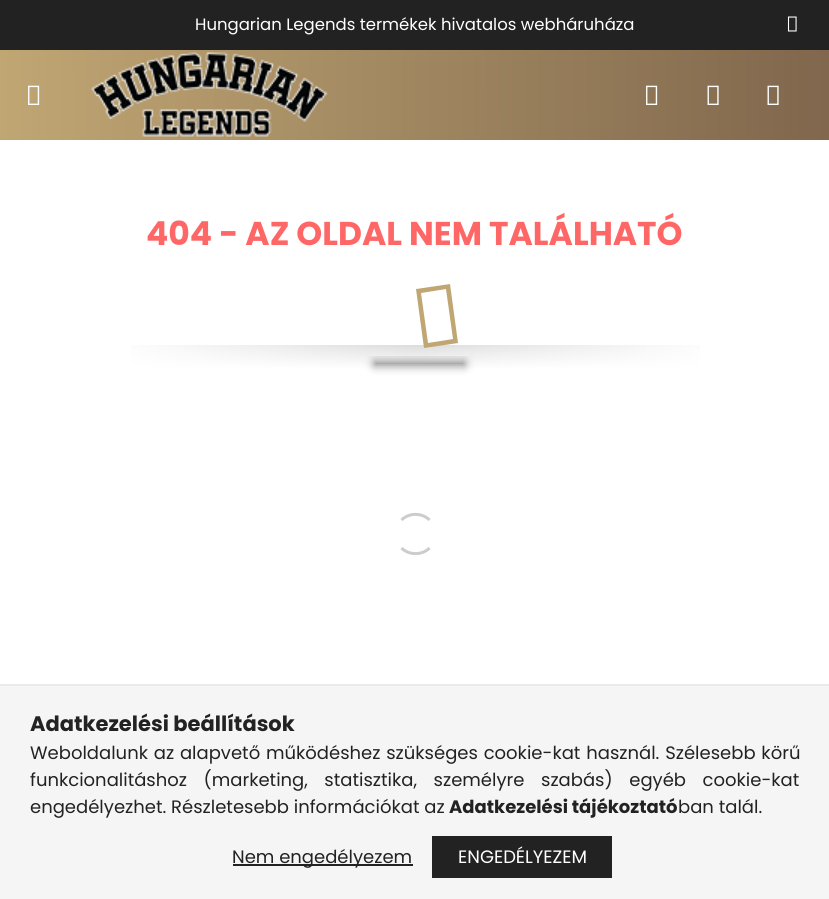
import math
import cairocffi as cairo

surface = cairo.ImageSurface(cairo.FORMAT_RGB24, 829, 899)
ctx = cairo.Context(surface)
options = cairo.FontOptions()
options.set_hint_metrics(cairo.HINT_METRICS_OFF)
options.set_hint_style(cairo.HINT_STYLE_NONE)
ctx.set_font_options(options)
ctx.set_miter_limit(4)


def rgb(r, g, b):
    ctx.set_source_rgb(r / 255, g / 255, b / 255)


def face(family, size, italic, bold):
    ctx.select_font_face(family, cairo.FONT_SLANT_ITALIC if italic else cairo.FONT_SLANT_NORMAL, cairo.FONT_WEIGHT_BOLD if bold else cairo.FONT_WEIGHT_NORMAL)
    ctx.set_font_size(size)


def label(x, y, s):
    ctx.move_to(x, y)
    ctx.show_text(s)


def tracked(x, y, s, letter, word):
    ctx.move_to(x, y)
    for ch in s:
        ctx.show_text(ch)
        ctx.rel_move_to(letter + word * (ch == ' '), 0)


def rect(x, y, w, h):
    ctx.rectangle(x, y, w, h)
    ctx.fill()


def rrect(x, y, w, h, r):
    ctx.new_sub_path()
    for i, (u, v) in enumerate([(x + w - r, y + h - r), (x + r, y + h - r), (x + r, y + r), (x + w - r, y + r)]):
        ctx.arc(u, v, r, i * math.pi / 2, (i + 1) * math.pi / 2)
    ctx.close_path()


def soft_shadow(x, y, w, h, r, blur, alpha):
    ctx.push_group_with_content(cairo.CONTENT_ALPHA)
    ctx.set_operator(cairo.OPERATOR_SOURCE)
    for i in range(15, -16, -2):
        e = blur * i / 6
        if min(w, h) + 2 * e > 0:
            ctx.set_source_rgba(0, 0, 0, alpha * math.erfc((i - 1) / 8.5) / 2)
            rrect(x - e, y - e, w + 2 * e, h + 2 * e, max(0, min(r + e + blur * .6, min(w, h) / 2 + e)))
            ctx.fill()
    ctx.mask(ctx.pop_group())


def image(path, x, y, w, h):
    ctx.save()
    ctx.set_source_surface(cairo.ImageSurface.create_from_png(path), x, y)
    ctx.rectangle(x, y, w, h)
    ctx.fill()
    ctx.restore()


rgb(255, 255, 255)
ctx.paint()
rgb(34, 34, 34)
rect(0, 0, 829, 50)
face('Poppins', 16.5, 0, 0)
rgb(255, 255, 255)
label(195, 30, 'Hungarian Legends termékek hivatalos webháruháza')
image('image0.png', 787, 16, 10, 16)
gradient = cairo.LinearGradient(0, 95, 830, 94)
gradient.add_color_stop_rgba(0, 0.753, 0.651, 0.451, 1)
gradient.add_color_stop_rgba(1, 0.502, 0.404, 0.302, 1)
ctx.set_source(gradient)
rect(0, 50, 829, 90)
image('image1.png', 28, 85, 12, 20)
image('image2.png', 91, 52, 237, 85)
image('image3.png', 646, 85, 12, 20)
image('image4.png', 707, 85, 12, 20)
image('image5.png', 767, 85, 12, 20)
face('Poppins', 33, 0, 1)
rgb(255, 102, 102)
label(146, 245, '404 - AZ OLDAL NEM TALÁLHATÓ')
gradient = cairo.LinearGradient(31, 357, 800, 357)
gradient.add_color_stop_rgba(0.1, 1, 1, 1, 1)
gradient.add_color_stop_rgba(0.5, 0.867, 0.867, 0.867, 1)
gradient.add_color_stop_rgba(0.9, 1, 1, 1, 1)
ctx.set_source(gradient)
rect(131, 345, 569, 24)
gradient = cairo.LinearGradient(416, 369, 416, 345)
gradient.add_color_stop_rgba(0, 1, 1, 1, 1)
gradient.add_color_stop_rgba(1, 1, 1, 1, 0)
ctx.set_source(gradient)
rect(131, 347, 569, 22)
ctx.save()
ctx.set_fill_rule(cairo.FILL_RULE_EVEN_ODD)
ctx.new_path()
ctx.move_to(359, 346)
ctx.line_to(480, 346)
ctx.line_to(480, 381)
ctx.line_to(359, 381)
ctx.close_path()
ctx.move_to(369, 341)
ctx.line_to(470, 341)
ctx.line_to(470, 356)
ctx.line_to(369, 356)
ctx.close_path()
ctx.clip()
rgb(128, 128, 128)
soft_shadow(375, 362, 89, 3, 0, 5, 1)
ctx.restore()
rgb(192, 166, 115)
ctx.new_path()
ctx.move_to(450, 284)
ctx.line_to(458, 343)
ctx.line_to(424, 348)
ctx.line_to(416, 289)
ctx.close_path()
ctx.move_to(446, 289)
ctx.line_to(421, 293)
ctx.line_to(428, 343)
ctx.line_to(453, 339)
ctx.close_path()
ctx.fill()
ctx.new_path()
ctx.move_to(401.5, 520)
ctx.curve_to(409, 512.5, 422, 512.5, 429.5, 520)
ctx.move_to(429.5, 548)
ctx.curve_to(422, 555.5, 409, 555.5, 401.5, 548)
rgb(204, 204, 204)
ctx.set_line_width(3)
ctx.stroke()
rgb(245, 245, 245)
rect(0, 686, 829, 213)
rgb(234, 234, 234)
rect(0, 684, 829, 2)
face('Poppins', 21, 0, 1)
rgb(34, 34, 34)
label(30, 731, 'Adatkezelési beállítások')
face('Poppins', 18, 0, 0)
tracked(30, 759, 'Weboldalunk az alapvető működéshez szükséges cookie-kat használ. Szélesebb körű', 0, 1)
tracked(30, 786, 'funkcionalitáshoz (marketing, statisztika, személyre szabás) egyéb cookie-kat', 0, 11.75)
label(30, 813, 'engedélyezhet. Részletesebb információkat az')
face('Poppins', 18, 0, 1)
label(449, 813, 'Adatkezelési tájékoztató')
face('Poppins', 18, 0, 0)
label(678, 813, 'ban talál.')
rect(233, 864, 180, 2)
label(232, 863, 'Nem engedélyezem')
gradient = cairo.LinearGradient(72, 857, 612, 857)
gradient.add_color_stop_rgba(0, 0.753, 0.651, 0.451, 1)
gradient.add_color_stop_rgba(0.33, 0.502, 0.404, 0.302, 1)
gradient.add_color_stop_rgba(0.67, 0.133, 0.133, 0.133, 1)
gradient.add_color_stop_rgba(1, 0.133, 0.133, 0.133, 1)
ctx.set_source(gradient)
rect(432, 836, 180, 42)
rgb(255, 255, 255)
label(458, 863, 'ENGEDÉLYEZEM')
surface.write_to_png('render.png')
